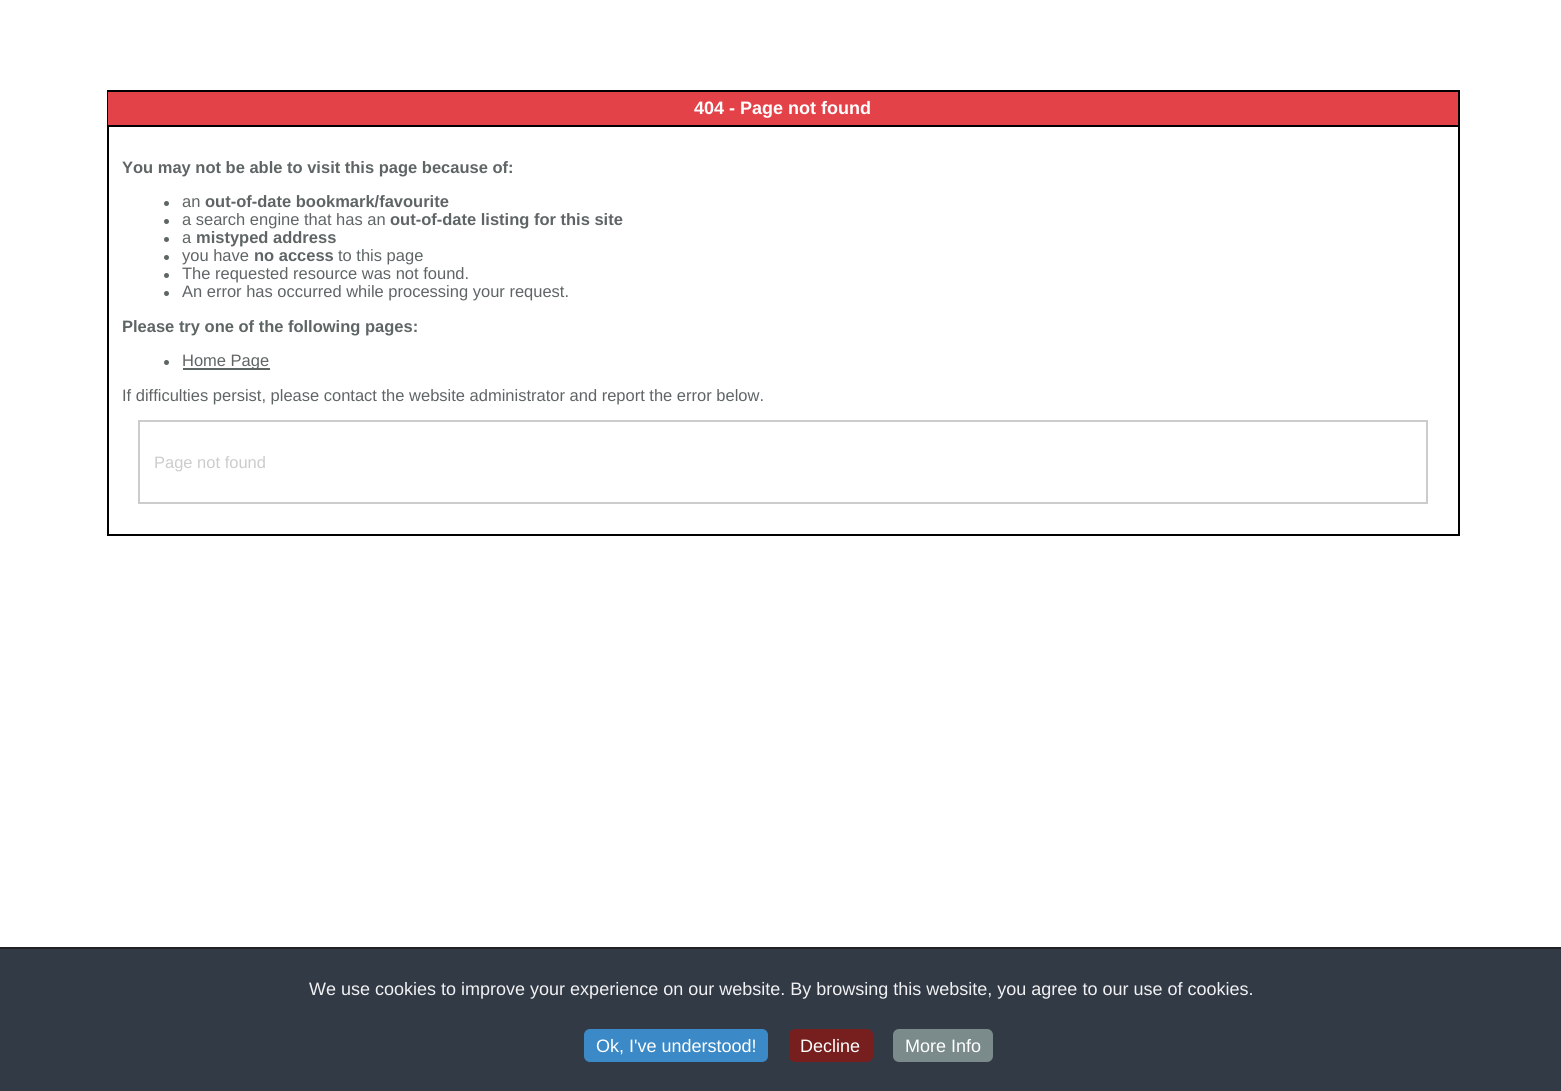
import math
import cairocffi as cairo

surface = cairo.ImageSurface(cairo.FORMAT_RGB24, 1561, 1091)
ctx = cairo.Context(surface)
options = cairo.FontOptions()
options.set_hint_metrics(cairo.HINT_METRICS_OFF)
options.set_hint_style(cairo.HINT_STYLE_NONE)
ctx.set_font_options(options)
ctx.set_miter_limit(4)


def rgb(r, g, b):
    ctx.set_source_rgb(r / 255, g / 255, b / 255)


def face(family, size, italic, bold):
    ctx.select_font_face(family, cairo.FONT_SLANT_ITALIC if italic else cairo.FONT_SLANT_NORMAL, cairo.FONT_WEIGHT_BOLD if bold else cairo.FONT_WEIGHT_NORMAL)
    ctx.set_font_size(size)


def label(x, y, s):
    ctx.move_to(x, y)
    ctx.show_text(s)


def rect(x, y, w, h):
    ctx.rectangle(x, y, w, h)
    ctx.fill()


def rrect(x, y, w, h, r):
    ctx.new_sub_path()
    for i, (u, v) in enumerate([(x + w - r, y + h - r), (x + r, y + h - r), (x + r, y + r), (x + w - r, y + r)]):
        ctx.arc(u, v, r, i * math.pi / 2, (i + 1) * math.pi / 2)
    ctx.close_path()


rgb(255, 255, 255)
ctx.paint()
ctx.rectangle(108, 91, 1351, 444)
rgb(0, 0, 0)
ctx.stroke()
rgb(228, 66, 73)
rect(108, 92, 1350, 33)
rgb(0, 0, 0)
rect(108, 125, 1350, 2)
face('Liberation Sans', 18, 0, 1)
rgb(255, 255, 255)
label(694, 114, '404 - Page not found')
face('Liberation Sans', 16.5, 0, 1)
rgb(95, 101, 101)
label(122, 173, 'You may not be able to visit this page because of:')
ctx.new_path()
ctx.arc(166.5, 203.5, 2.5, 0, 2 * math.pi)
ctx.fill()
face('Liberation Sans', 16.5, 0, 0)
label(182, 207, 'an')
face('Liberation Sans', 16.5, 0, 1)
label(205, 207, 'out-of-date bookmark/favourite')
ctx.new_path()
ctx.arc(166.5, 221.5, 2.5, 0, 2 * math.pi)
ctx.fill()
face('Liberation Sans', 16.5, 0, 0)
label(182, 225, 'a search engine that has an')
face('Liberation Sans', 16.5, 0, 1)
label(390, 225, 'out-of-date listing for this site')
ctx.new_path()
ctx.arc(166.5, 239.5, 2.5, 0, 2 * math.pi)
ctx.fill()
face('Liberation Sans', 16.5, 0, 0)
label(182, 243, 'a')
face('Liberation Sans', 16.5, 0, 1)
label(196, 243, 'mistyped address')
ctx.new_path()
ctx.arc(166.5, 257.5, 2.5, 0, 2 * math.pi)
ctx.fill()
face('Liberation Sans', 16.5, 0, 0)
label(182, 261, 'you have')
face('Liberation Sans', 16.5, 0, 1)
label(254, 261, 'no access')
face('Liberation Sans', 16.5, 0, 0)
label(338, 261, 'to this page')
ctx.new_path()
ctx.arc(166.5, 275.5, 2.5, 0, 2 * math.pi)
ctx.fill()
label(182, 279, 'The requested resource was not found.')
ctx.new_path()
ctx.arc(166.5, 293.5, 2.5, 0, 2 * math.pi)
ctx.fill()
label(182, 297, 'An error has occurred while processing your request.')
face('Liberation Sans', 16.5, 0, 1)
label(122, 332, 'Please try one of the following pages:')
ctx.new_path()
ctx.arc(166.5, 362.5, 2.5, 0, 2 * math.pi)
ctx.fill()
rect(183, 368, 87, 2)
face('Liberation Sans', 16.5, 0, 0)
label(182, 366, 'Home Page')
label(122, 401, 'If difficulties persist, please contact the website administrator and report the error below.')
ctx.rectangle(139, 421, 1288, 82)
rgb(204, 204, 204)
ctx.stroke()
label(154, 468, 'Page not found')
rgb(50, 58, 69)
rect(0, 949, 1561, 142)
rgb(32, 34, 38)
rect(0, 947, 1561, 2)
face('Liberation Sans', 18, 0, 0)
rgb(241, 241, 243)
label(309, 995, 'We use cookies to improve your experience on our website. By browsing this website, you agree to our use of cookies.')
rgb(59, 137, 199)
rrect(584, 1029, 184, 33, 6)
ctx.fill()
rgb(255, 255, 255)
label(596, 1052, 'Ok, I\'ve understood!')
rgb(119, 31, 31)
rrect(789, 1029, 84, 33, 6)
ctx.fill()
rgb(255, 255, 255)
label(800, 1052, 'Decline')
rgb(123, 138, 139)
rrect(893, 1029, 100, 33, 6)
ctx.fill()
rgb(255, 255, 255)
label(905, 1052, 'More Info')
surface.write_to_png('render.png')
